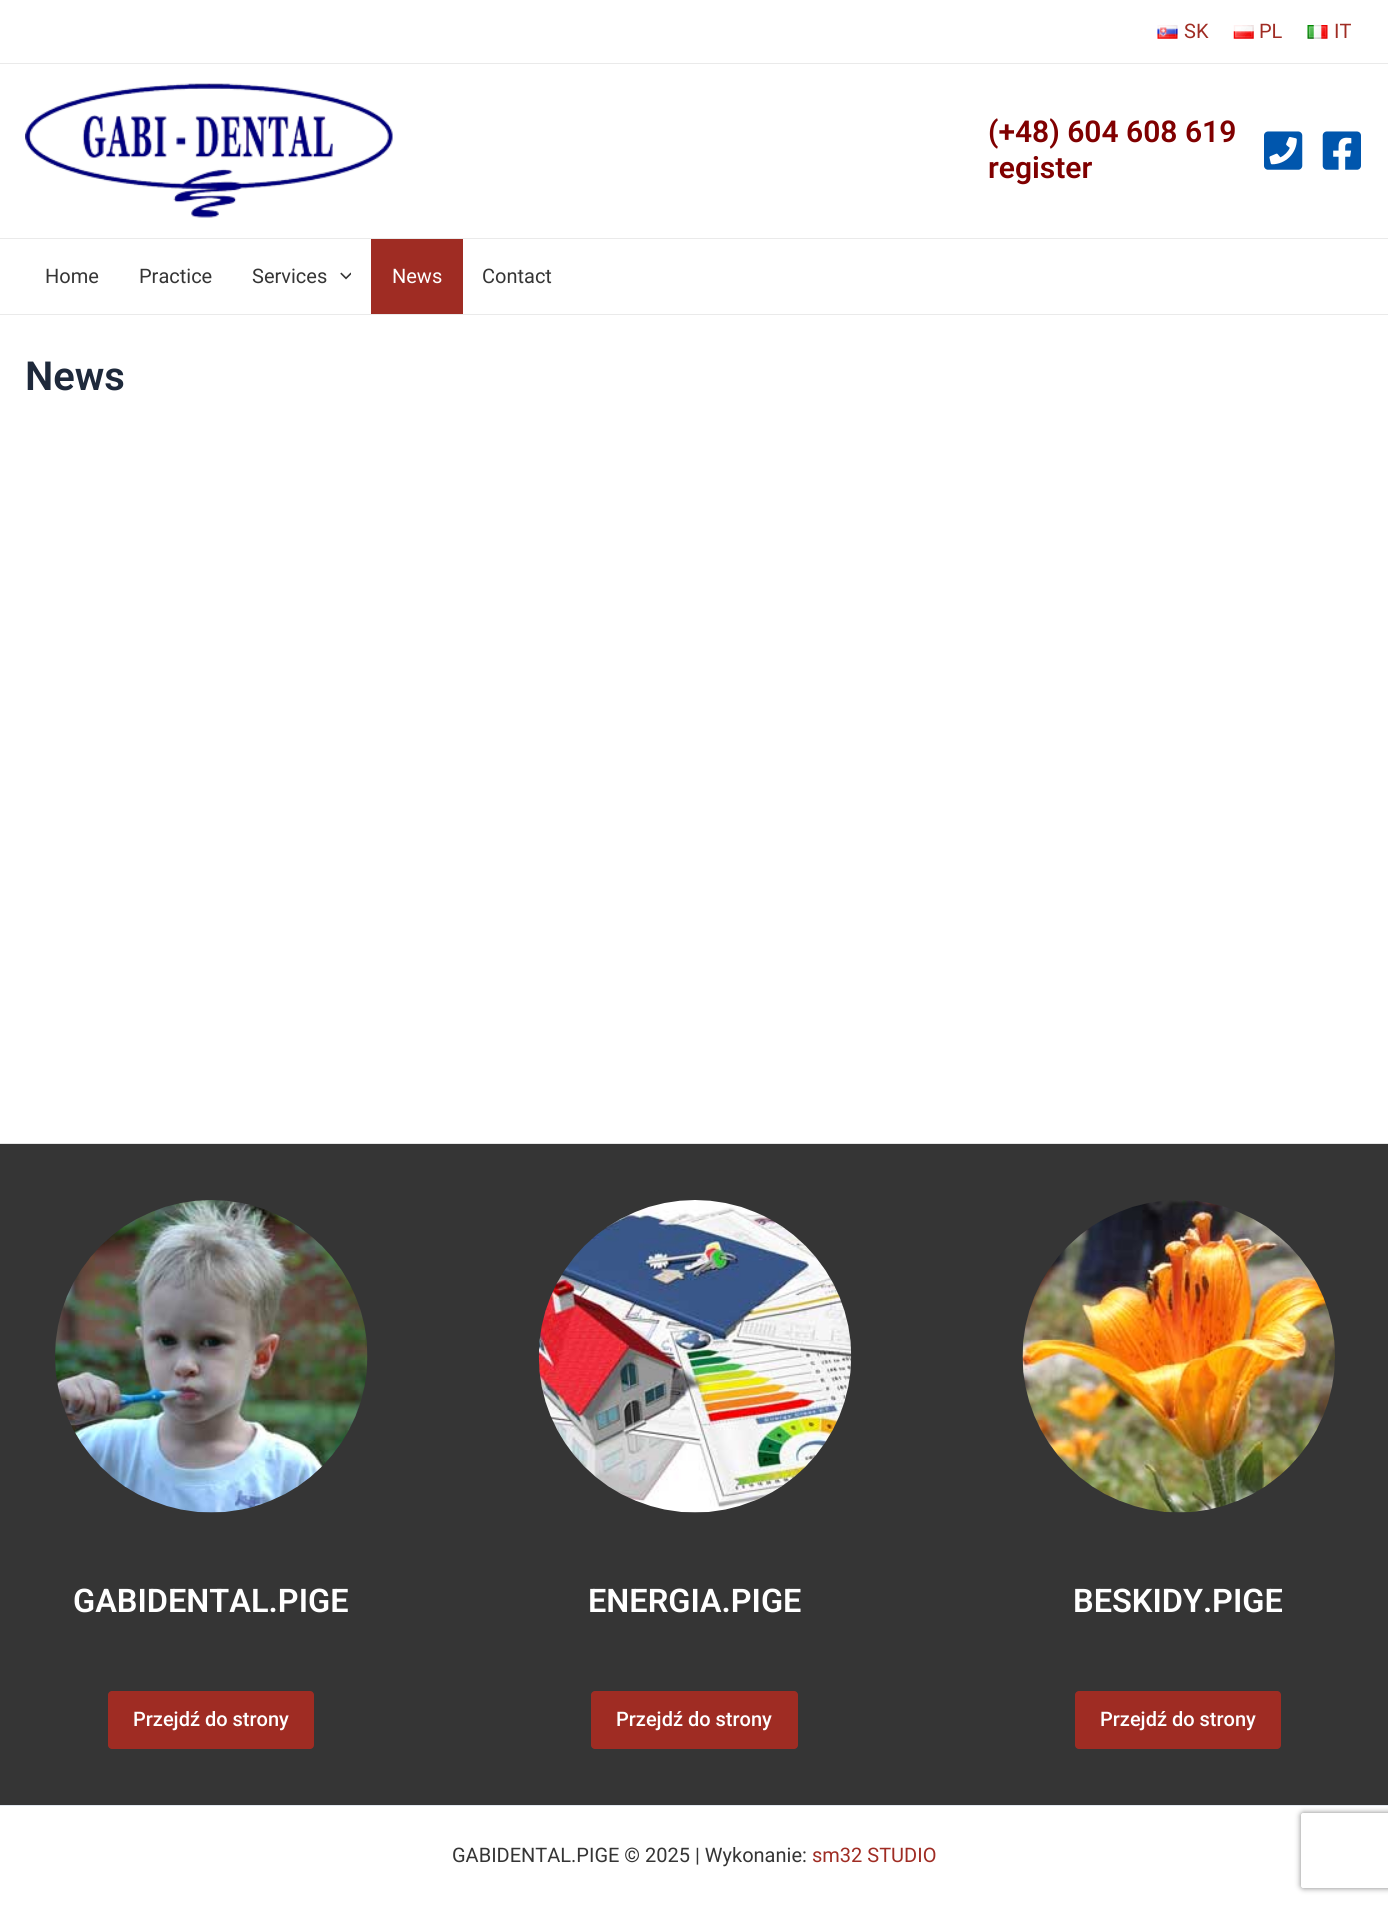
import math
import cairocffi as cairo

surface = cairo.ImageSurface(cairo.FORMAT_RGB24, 1388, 1905)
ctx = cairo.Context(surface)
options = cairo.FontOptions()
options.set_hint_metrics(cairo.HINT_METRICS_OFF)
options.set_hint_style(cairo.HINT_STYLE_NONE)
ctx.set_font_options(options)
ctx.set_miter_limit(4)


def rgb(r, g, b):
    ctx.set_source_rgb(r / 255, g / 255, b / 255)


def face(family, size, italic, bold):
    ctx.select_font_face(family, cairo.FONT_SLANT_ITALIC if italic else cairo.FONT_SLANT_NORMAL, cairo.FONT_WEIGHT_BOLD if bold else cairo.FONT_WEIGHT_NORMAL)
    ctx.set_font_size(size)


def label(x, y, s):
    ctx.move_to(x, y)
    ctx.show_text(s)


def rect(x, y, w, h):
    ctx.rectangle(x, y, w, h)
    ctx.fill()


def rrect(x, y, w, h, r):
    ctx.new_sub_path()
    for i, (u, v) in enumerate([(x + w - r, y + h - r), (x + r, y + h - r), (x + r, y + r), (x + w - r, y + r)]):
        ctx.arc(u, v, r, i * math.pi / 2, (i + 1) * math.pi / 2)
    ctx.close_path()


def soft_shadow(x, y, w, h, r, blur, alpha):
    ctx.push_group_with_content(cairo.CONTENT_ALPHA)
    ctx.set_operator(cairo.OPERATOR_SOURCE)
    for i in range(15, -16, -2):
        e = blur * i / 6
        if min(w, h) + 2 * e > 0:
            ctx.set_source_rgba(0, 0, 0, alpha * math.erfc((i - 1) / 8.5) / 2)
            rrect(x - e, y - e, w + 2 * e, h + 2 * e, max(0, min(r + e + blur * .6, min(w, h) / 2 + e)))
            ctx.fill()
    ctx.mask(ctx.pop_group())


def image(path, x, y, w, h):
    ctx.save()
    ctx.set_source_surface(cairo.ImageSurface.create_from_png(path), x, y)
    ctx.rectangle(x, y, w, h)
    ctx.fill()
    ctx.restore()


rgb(255, 255, 255)
ctx.paint()
rgb(234, 234, 234)
rect(0, 63, 1388, 1)
image('image0.png', 1157, 25, 21, 14)
face('Roboto', 20, 0, 0)
rgb(159, 44, 35)
label(1184, 38, 'SK')
image('image1.png', 1233, 25, 21, 14)
label(1259, 38, 'PL')
image('image2.png', 1307, 25, 21, 14)
label(1334, 38, 'IT')
rgb(234, 234, 234)
rect(0, 238, 1388, 1)
image('image3.png', 25, 83, 368, 135)
face('Roboto SemiBold', 30, 0, 0)
rgb(128, 0, 0)
label(988, 142, '(+48) 604 608 619')
label(988, 178, 'register')
image('image4.png', 1264, 131, 39, 39)
image('image5.png', 1322, 131, 39, 39)
rgb(234, 234, 234)
rect(0, 314, 1388, 1)
face('Roboto', 20, 0, 0)
rgb(53, 53, 53)
label(45, 283, 'Home')
label(139, 283, 'Practice')
label(252, 283, 'Services')
image('image6.png', 340, 272, 11, 8)
rgb(159, 44, 35)
rect(371, 239, 92, 75)
rgb(255, 255, 255)
label(392, 283, 'News')
rgb(53, 53, 53)
label(482, 283, 'Contact')
face('Roboto SemiBold', 40, 0, 0)
rgb(30, 41, 59)
label(25, 390, 'News')
rgb(53, 53, 53)
rect(0, 1144, 1388, 661)
rgb(230, 230, 230)
rect(0, 1143, 1388, 1)
image('image7.png', 55, 1200, 313, 313)
face('Roboto SemiBold', 32.5, 0, 0)
rgb(255, 255, 255)
label(73, 1612, 'GABIDENTAL.PIGE')
rgb(159, 44, 35)
rrect(108, 1691, 206, 58, 4)
ctx.fill()
face('Roboto Medium', 20, 0, 0)
rgb(255, 255, 255)
label(133, 1726, 'Przejdź do strony')
image('image8.png', 538, 1200, 314, 313)
face('Roboto SemiBold', 32.5, 0, 0)
label(588, 1612, 'ENERGIA.PIGE')
rgb(159, 44, 35)
rrect(591, 1691, 207, 58, 4)
ctx.fill()
face('Roboto Medium', 20, 0, 0)
rgb(255, 255, 255)
label(616, 1726, 'Przejdź do strony')
image('image9.png', 1022, 1200, 313, 313)
face('Roboto SemiBold', 32.5, 0, 0)
label(1073, 1612, 'BESKIDY.PIGE')
rgb(159, 44, 35)
rrect(1075, 1691, 206, 58, 4)
ctx.fill()
face('Roboto Medium', 20, 0, 0)
rgb(255, 255, 255)
label(1100, 1726, 'Przejdź do strony')
rgb(226, 232, 240)
rect(0, 1805, 1388, 1)
face('Roboto', 20, 0, 0)
rgb(53, 53, 53)
label(452, 1862, 'GABIDENTAL.PIGE © 2025 | Wykonanie:')
rgb(159, 44, 35)
label(812, 1862, 'sm32 STUDIO')
ctx.save()
ctx.set_fill_rule(cairo.FILL_RULE_EVEN_ODD)
ctx.new_path()
ctx.move_to(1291, 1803)
ctx.line_to(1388, 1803)
ctx.line_to(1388, 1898)
ctx.line_to(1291, 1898)
ctx.close_path()
ctx.move_to(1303.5, 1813)
ctx.line_to(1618.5, 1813)
ctx.curve_to(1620, 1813, 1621, 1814, 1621, 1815.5)
ctx.line_to(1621, 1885.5)
ctx.curve_to(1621, 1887, 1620, 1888, 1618.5, 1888)
ctx.line_to(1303.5, 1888)
ctx.curve_to(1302, 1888, 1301, 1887, 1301, 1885.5)
ctx.line_to(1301, 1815.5)
ctx.curve_to(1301, 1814, 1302, 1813, 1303.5, 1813)
ctx.close_path()
ctx.clip()
rgb(128, 128, 128)
soft_shadow(1301, 1813, 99, 75, 2.5, 3, 1)
ctx.restore()
surface.write_to_png('render.png')
